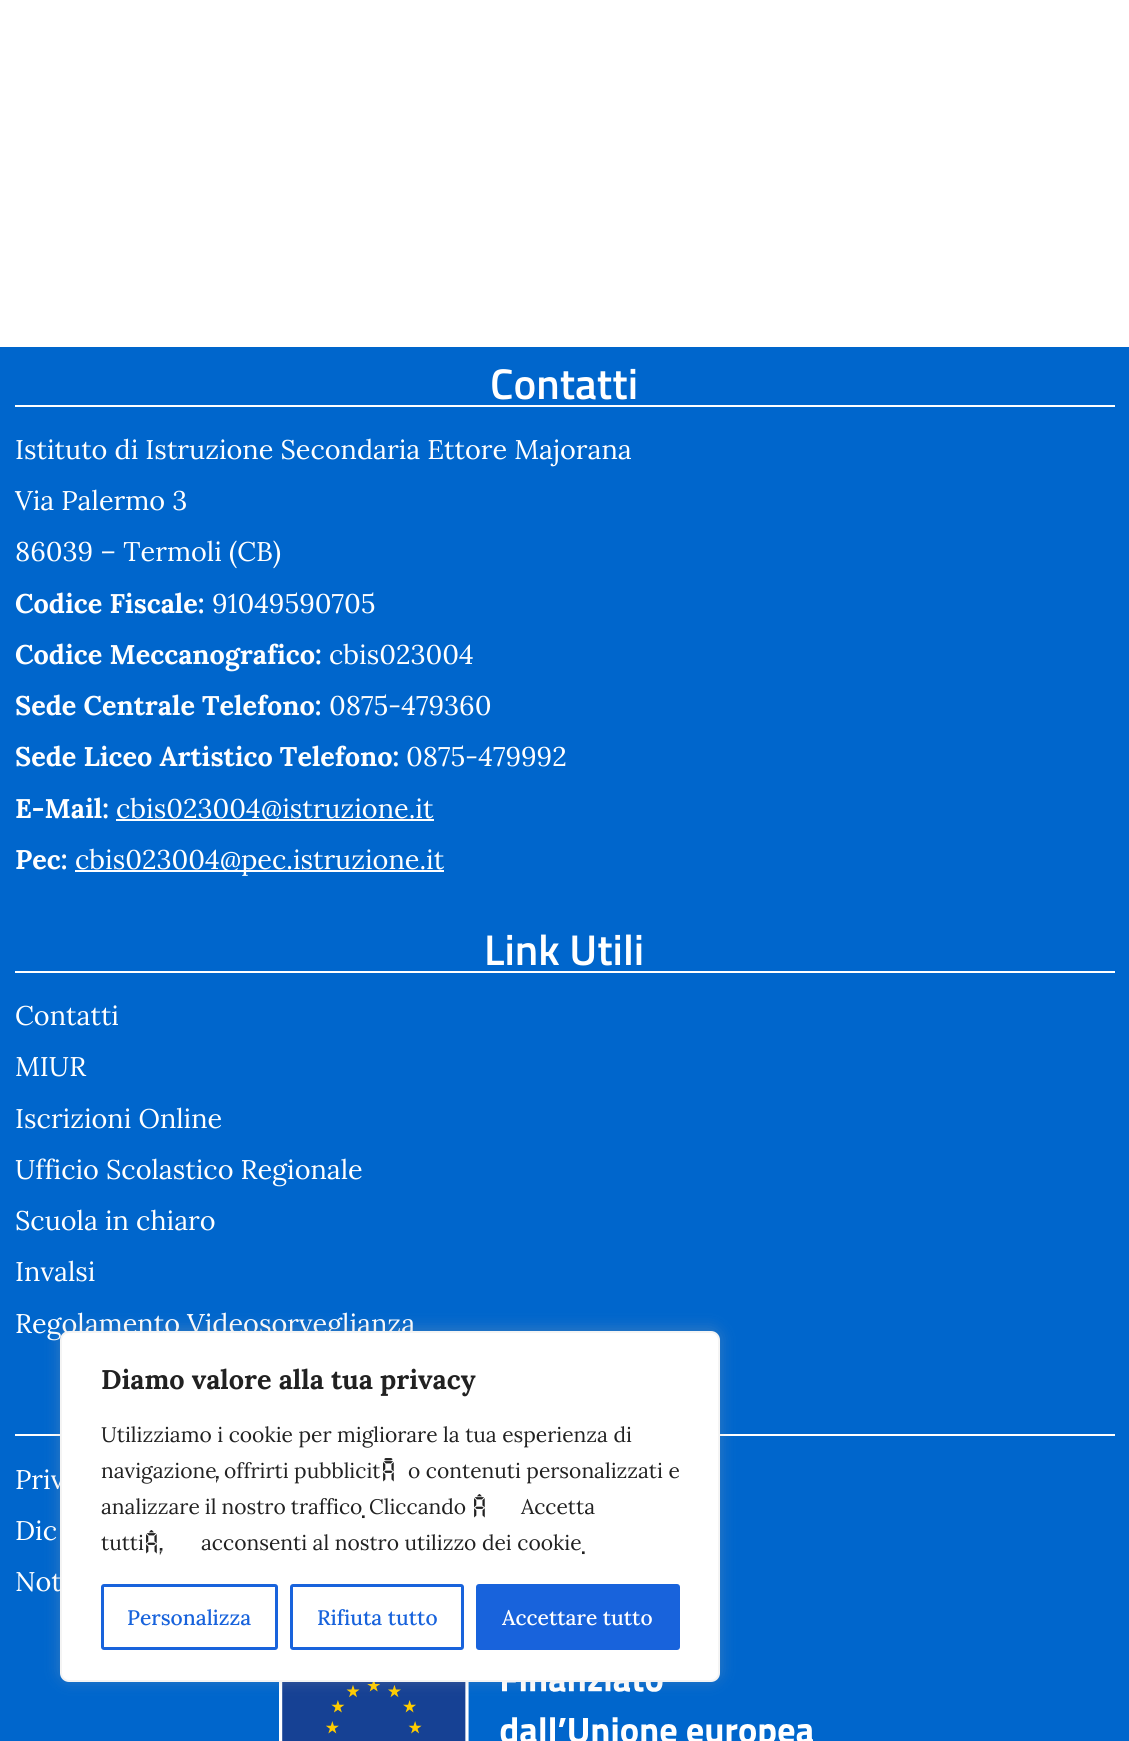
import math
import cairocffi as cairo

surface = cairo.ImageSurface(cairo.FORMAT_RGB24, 1129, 1741)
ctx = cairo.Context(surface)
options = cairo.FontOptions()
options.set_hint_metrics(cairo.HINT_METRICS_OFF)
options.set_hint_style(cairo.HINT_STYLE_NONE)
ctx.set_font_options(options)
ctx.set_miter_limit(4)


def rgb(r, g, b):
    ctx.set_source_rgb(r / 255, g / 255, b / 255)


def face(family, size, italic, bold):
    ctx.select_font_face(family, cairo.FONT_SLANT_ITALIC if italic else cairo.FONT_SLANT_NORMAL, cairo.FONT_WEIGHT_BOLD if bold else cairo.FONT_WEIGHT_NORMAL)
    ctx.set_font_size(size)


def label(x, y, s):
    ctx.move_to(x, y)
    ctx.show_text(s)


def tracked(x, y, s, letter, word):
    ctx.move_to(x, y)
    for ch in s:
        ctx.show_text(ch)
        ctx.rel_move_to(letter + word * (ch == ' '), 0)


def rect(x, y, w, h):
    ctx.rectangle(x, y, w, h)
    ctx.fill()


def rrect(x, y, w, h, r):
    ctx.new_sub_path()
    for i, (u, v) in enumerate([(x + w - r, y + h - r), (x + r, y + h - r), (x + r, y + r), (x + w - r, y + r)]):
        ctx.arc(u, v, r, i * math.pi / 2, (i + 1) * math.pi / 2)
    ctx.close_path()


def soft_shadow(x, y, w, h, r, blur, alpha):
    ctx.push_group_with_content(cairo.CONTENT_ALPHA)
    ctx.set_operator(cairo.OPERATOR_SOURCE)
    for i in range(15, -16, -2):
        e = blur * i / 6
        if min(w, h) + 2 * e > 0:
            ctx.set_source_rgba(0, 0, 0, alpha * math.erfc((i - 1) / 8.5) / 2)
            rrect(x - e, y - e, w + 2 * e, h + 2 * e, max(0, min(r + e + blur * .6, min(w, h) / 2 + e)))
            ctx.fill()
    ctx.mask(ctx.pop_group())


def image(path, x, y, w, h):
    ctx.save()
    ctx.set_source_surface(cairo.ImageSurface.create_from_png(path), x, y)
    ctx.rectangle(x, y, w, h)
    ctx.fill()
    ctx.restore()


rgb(255, 255, 255)
ctx.paint()
rgb(0, 102, 204)
rect(0, 347, 1129, 1394)
rgb(255, 255, 255)
rect(15, 405, 1100, 2)
face('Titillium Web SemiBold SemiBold', 43, 0, 0)
label(490, 399, 'Contatti')
face('Lora', 27, 0, 0)
label(15, 459, 'Istituto di Istruzione Secondaria Ettore Majorana')
label(15, 510, 'Via Palermo 3')
label(15, 561, '86039 – Termoli (CB)')
face('Lora', 27, 0, 1)
label(15, 613, 'Codice Fiscale:')
face('Lora', 27, 0, 0)
label(212, 613, '91049590705')
face('Lora', 27, 0, 1)
label(15, 664, 'Codice Meccanografico:')
face('Lora', 27, 0, 0)
label(329, 664, 'cbis023004')
face('Lora', 27, 0, 1)
label(15, 715, 'Sede Centrale Telefono:')
face('Lora', 27, 0, 0)
label(329, 715, '0875-479360')
face('Lora', 27, 0, 1)
label(15, 766, 'Sede Liceo Artistico Telefono:')
face('Lora', 27, 0, 0)
label(406, 766, '0875-479992')
face('Lora', 27, 0, 1)
label(15, 818, 'E-Mail:')
rect(116, 819, 318, 2)
face('Lora', 27, 0, 0)
label(116, 818, 'cbis023004@istruzione.it')
face('Lora', 27, 0, 1)
label(15, 869, 'Pec:')
rect(75, 870, 369, 2)
face('Lora', 27, 0, 0)
label(75, 869, 'cbis023004@pec.istruzione.it')
rect(15, 971, 1100, 2)
face('Titillium Web SemiBold SemiBold', 43, 0, 0)
label(484, 965, 'Link Utili')
face('Lora', 27, 0, 0)
label(15, 1025, 'Contatti')
label(15, 1076, 'MIUR')
label(15, 1128, 'Iscrizioni Online')
label(15, 1179, 'Ufficio Scolastico Regionale')
label(15, 1230, 'Scuola in chiaro')
label(15, 1281, 'Invalsi')
label(15, 1333, 'Regolamento Videosorveglianza')
rect(15, 1434, 1100, 2)
label(15, 1489, 'Priv')
label(15, 1540, 'Dic')
label(15, 1591, 'Not')
image('image0.png', 279, 1682, 534, 59)
rgb(172, 171, 171)
soft_shadow(60, 1329, 660, 351, 9, 7.5, 0.3)
rgb(255, 255, 255)
rrect(61, 1332, 658, 349, 8)
ctx.fill_preserve()
rgb(244, 244, 244)
ctx.stroke()
face('Lora', 27, 0, 1)
rgb(33, 33, 33)
label(101, 1389, 'Diamo valore alla tua privacy')
face('Lora', 21, 0, 0)
label(101, 1442, 'Utilizziamo i cookie per migliorare la tua esperienza di')
label(101, 1478, 'navigazione')
face('Digital Numbers', 21, 0, 0)
label(216, 1478, ',')
face('Lora', 21, 0, 0)
label(224, 1478, 'offrirti pubblicit')
face('Digital Numbers', 21, 0, 0)
label(380, 1478, 'Ã')
face('Lora', 21, 0, 0)
label(408, 1478, 'o contenuti personalizzati e')
tracked(101, 1514, 'analizzare il nostro traffico', 0, -0.5)
label(369, 1514, 'Cliccando')
face('Digital Numbers', 21, 0, 0)
label(471, 1514, 'â')
face('Lora', 21, 0, 0)
label(521, 1514, 'Accetta')
face('Digital Numbers', 21, 0, 0)
label(362, 1514, '.')
face('Lora', 21, 0, 0)
label(101, 1550, 'tutti')
face('Digital Numbers', 21, 0, 0)
label(143, 1550, 'â,')
face('Lora', 21, 0, 0)
label(201, 1550, 'acconsenti al nostro utilizzo dei cookie')
face('Digital Numbers', 21, 0, 0)
label(582, 1550, '.')
rrect(102.5, 1585.5, 174, 63, 1.5)
rgb(24, 99, 220)
ctx.set_line_width(3)
ctx.stroke()
face('Lora Medium', 21, 0, 0)
label(127, 1625, 'Personalizza')
rrect(291.5, 1585.5, 171, 63, 1.5)
ctx.stroke()
label(317, 1625, 'Rifiuta tutto')
rrect(477.5, 1585.5, 201, 63, 1.5)
ctx.fill_preserve()
ctx.stroke()
rgb(255, 255, 255)
label(502, 1625, 'Accettare tutto')
surface.write_to_png('render.png')
